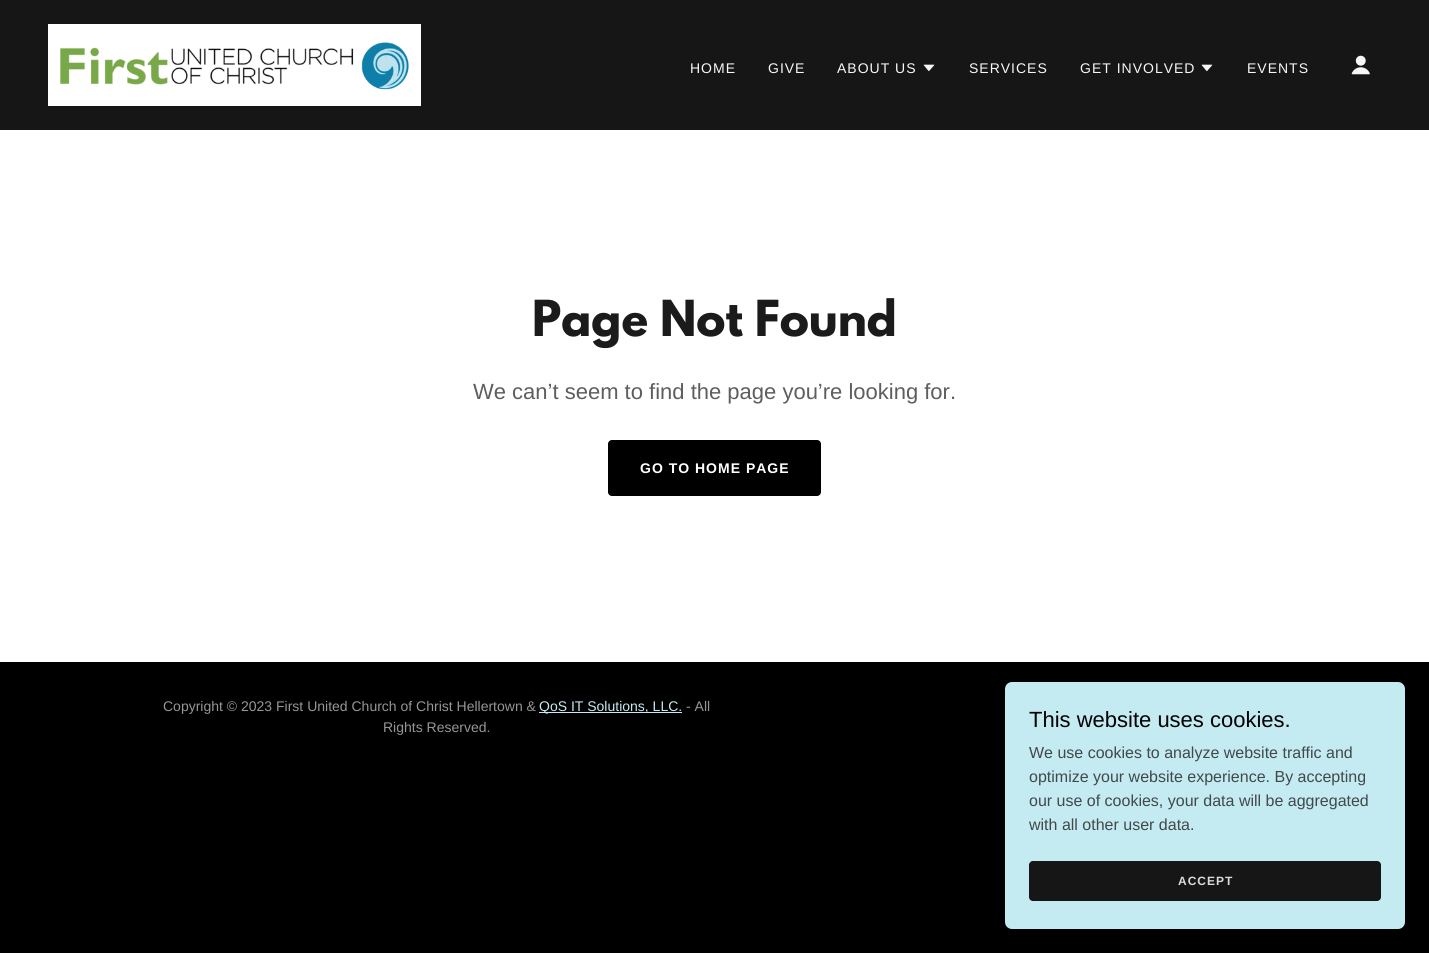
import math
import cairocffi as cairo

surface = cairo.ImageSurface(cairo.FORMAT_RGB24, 1429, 953)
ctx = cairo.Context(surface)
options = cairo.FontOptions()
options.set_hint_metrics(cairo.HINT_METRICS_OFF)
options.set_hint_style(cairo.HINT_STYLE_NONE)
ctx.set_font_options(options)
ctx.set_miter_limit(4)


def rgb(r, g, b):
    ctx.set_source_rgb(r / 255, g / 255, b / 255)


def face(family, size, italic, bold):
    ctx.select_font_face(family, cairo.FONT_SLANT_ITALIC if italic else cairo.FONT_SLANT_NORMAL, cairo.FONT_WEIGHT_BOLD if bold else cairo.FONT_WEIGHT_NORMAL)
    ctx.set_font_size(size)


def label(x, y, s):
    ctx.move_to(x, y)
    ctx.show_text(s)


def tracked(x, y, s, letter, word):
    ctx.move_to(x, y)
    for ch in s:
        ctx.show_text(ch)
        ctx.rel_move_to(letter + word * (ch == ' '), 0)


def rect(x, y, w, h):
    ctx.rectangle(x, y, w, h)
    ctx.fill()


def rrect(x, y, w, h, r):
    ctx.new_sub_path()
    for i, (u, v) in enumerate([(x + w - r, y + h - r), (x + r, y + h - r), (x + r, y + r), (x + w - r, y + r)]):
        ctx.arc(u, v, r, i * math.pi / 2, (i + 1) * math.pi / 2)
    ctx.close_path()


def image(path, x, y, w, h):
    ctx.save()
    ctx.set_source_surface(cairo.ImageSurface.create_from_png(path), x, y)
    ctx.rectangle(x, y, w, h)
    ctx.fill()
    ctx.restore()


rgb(0, 0, 0)
ctx.paint()
rgb(22, 22, 22)
rect(0, 0, 1429, 130)
rgb(255, 255, 255)
rect(48, 24, 373, 82)
image('image0.png', 60, 42, 349, 48)
face('Liberation Sans', 14, 0, 0)
rgb(247, 247, 247)
tracked(690, 73, 'HOME', 1, 0)
tracked(768, 73, 'GIVE', 1, 0)
tracked(837, 73, 'ABOUT US', 1, 0)
image('image1.png', 923, 64, 12, 8)
tracked(969, 73, 'SERVICES', 1, 0)
tracked(1080, 73, 'GET INVOLVED', 1, 0)
image('image1.png', 1201, 64, 12, 8)
tracked(1247, 73, 'EVENTS', 1, 0)
image('image2.png', 1351, 55, 19, 20)
rgb(255, 255, 255)
rect(0, 130, 1429, 532)
face('League Spartan', 44, 0, 1)
rgb(27, 27, 27)
label(532, 336, 'Page Not Found')
face('Liberation Sans', 22, 0, 0)
rgb(94, 94, 94)
label(473, 399, 'We can’t seem to find the page you’re looking for.')
rgb(0, 0, 0)
rrect(608, 440, 213, 56, 4)
ctx.fill()
face('Liberation Sans', 14, 0, 1)
rgb(255, 255, 255)
tracked(640, 473, 'GO TO HOME PAGE', 1, 0)
face('Liberation Sans', 14, 0, 0)
rgb(150, 150, 150)
label(163, 711, 'Copyright © 2023 First United Church of Christ Hellertown &')
rgb(196, 234, 242)
rect(539, 712, 143, 1)
label(539, 711, 'QoS IT Solutions, LLC.')
rgb(150, 150, 150)
label(686, 711, '- All')
label(383, 732, 'Rights Reserved.')
rgb(196, 234, 242)
rrect(1005, 682, 400, 247, 7)
ctx.fill()
face('Liberation Sans', 22, 0, 0)
rgb(1, 1, 1)
label(1029, 727, 'This website uses cookies.')
face('Liberation Sans', 16, 0, 0)
rgb(65, 73, 74)
label(1029, 758, 'We use cookies to analyze website traffic and')
label(1029, 782, 'optimize your website experience. By accepting')
label(1029, 806, 'our use of cookies, your data will be aggregated')
label(1029, 830, 'with all other user data.')
rgb(22, 22, 22)
rrect(1029, 861, 352, 40, 4)
ctx.fill()
face('Liberation Sans', 12, 0, 1)
rgb(219, 219, 219)
tracked(1178, 885, 'ACCEPT', 1, 0)
surface.write_to_png('render.png')
